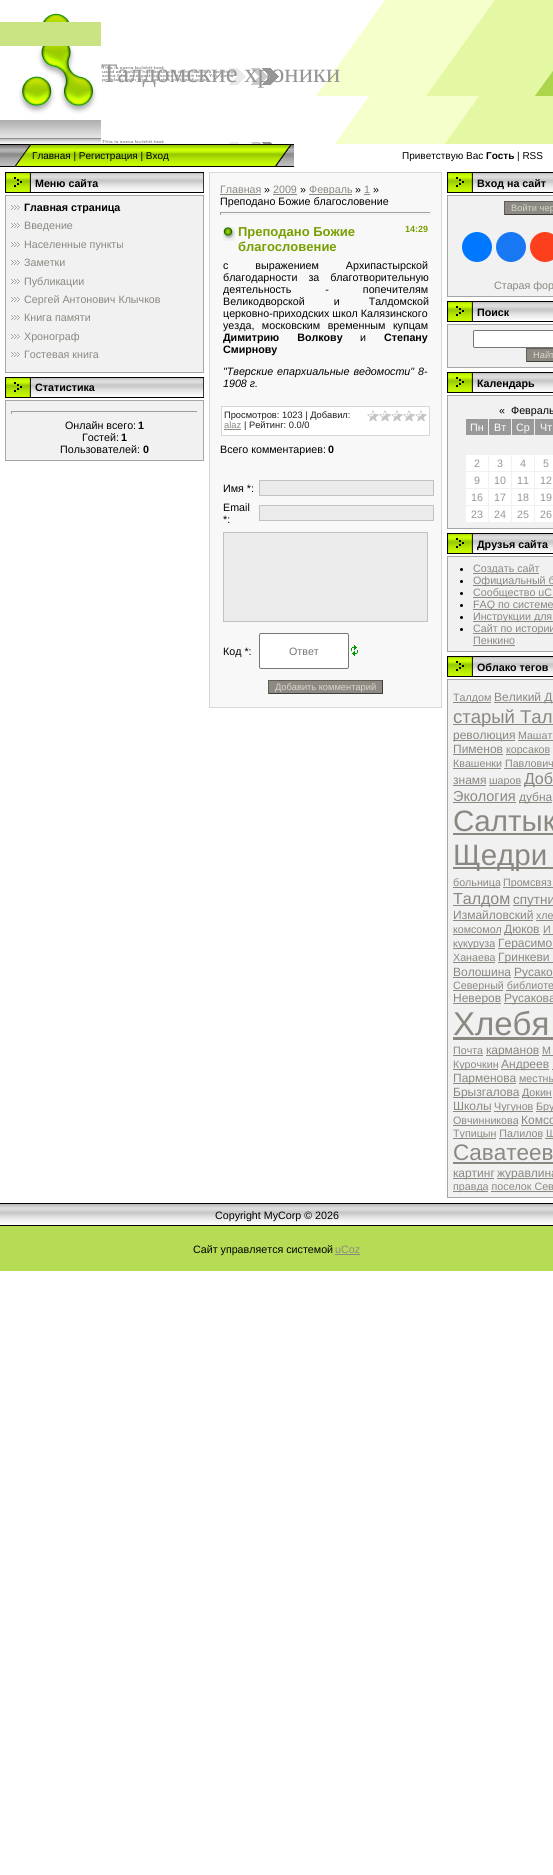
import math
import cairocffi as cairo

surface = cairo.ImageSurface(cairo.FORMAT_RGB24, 553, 1875)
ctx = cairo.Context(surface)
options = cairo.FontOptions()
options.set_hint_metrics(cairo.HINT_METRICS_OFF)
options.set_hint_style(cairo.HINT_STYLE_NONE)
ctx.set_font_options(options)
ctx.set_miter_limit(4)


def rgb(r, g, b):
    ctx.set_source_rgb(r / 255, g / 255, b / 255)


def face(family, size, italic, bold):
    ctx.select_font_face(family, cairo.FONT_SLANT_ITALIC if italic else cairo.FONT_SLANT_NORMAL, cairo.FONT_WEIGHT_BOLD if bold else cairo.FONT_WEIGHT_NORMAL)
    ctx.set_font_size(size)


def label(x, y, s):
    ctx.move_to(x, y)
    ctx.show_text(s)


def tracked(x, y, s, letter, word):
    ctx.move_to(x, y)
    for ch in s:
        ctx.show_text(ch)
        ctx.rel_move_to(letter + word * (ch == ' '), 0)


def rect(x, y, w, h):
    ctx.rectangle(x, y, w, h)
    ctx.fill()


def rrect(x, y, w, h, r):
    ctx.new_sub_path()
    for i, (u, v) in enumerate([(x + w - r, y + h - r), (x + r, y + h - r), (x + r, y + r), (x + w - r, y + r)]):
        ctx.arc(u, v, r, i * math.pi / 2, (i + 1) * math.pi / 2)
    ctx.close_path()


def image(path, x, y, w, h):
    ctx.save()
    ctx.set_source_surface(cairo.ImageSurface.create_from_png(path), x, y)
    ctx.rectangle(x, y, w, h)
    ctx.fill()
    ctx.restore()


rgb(255, 255, 255)
ctx.paint()
image('image0.png', 0, 22, 101, 122)
image('image1.png', 0, 0, 101, 22)
image('image2.png', 101, 0, 452, 22)
image('image3.png', 0, 46, 101, 74)
image('image4.png', 101, 22, 452, 122)
face('Liberation Serif', 26.75, 0, 0)
rgb(150, 149, 149)
label(101, 82, 'Талдомские хроники')
image('image5.png', 0, 144, 32, 23)
image('image6.png', 32, 144, 235, 23)
face('Liberation Sans', 10, 0, 0)
rgb(0, 0, 0)
label(32, 159, 'Главная | Регистрация | Вход')
image('image7.png', 267, 144, 27, 23)
label(402, 159, 'Приветствую Вас')
face('Liberation Sans', 10, 0, 1)
label(486, 159, 'Гость')
face('Liberation Sans', 10, 0, 0)
label(517, 159, '| RSS')
image('image8.png', 5, 172, 199, 21)
face('Liberation Sans', 10.7, 0, 1)
label(35, 187, 'Меню сайта')
rgb(241, 241, 241)
ctx.rectangle(5.5, 195.5, 198, 177)
ctx.fill_preserve()
rgb(167, 166, 166)
ctx.set_line_width(1)
ctx.stroke()
image('image9.png', 11, 205, 9, 5)
rgb(0, 0, 0)
label(24, 211, 'Главная страница')
image('image9.png', 11, 223, 9, 5)
face('Liberation Sans', 10.7, 0, 0)
rgb(139, 136, 129)
label(24, 229, 'Введение')
image('image9.png', 11, 242, 9, 5)
label(24, 248, 'Населенные пункты')
image('image9.png', 11, 260, 9, 5)
label(24, 266, 'Заметки')
image('image9.png', 11, 279, 9, 5)
label(24, 285, 'Публикации')
image('image9.png', 11, 297, 9, 5)
label(24, 303, 'Сергей Антонович Клычков')
image('image9.png', 11, 315, 9, 5)
label(24, 321, 'Книга памяти')
image('image9.png', 11, 334, 9, 5)
label(24, 340, 'Хронограф')
image('image9.png', 11, 352, 9, 5)
label(24, 358, 'Гостевая книга')
image('image8.png', 5, 377, 199, 21)
face('Liberation Sans', 10.7, 0, 1)
rgb(0, 0, 0)
label(35, 391, 'Статистика')
rgb(241, 241, 241)
ctx.rectangle(5.5, 400.5, 198, 60)
ctx.fill_preserve()
rgb(167, 166, 166)
ctx.stroke()
rgb(159, 159, 159)
rect(11, 411, 187, 1)
rgb(238, 238, 238)
rect(197, 411, 1, 3)
rect(11, 413, 187, 1)
rgb(159, 159, 159)
rect(11, 411, 1, 3)
face('Liberation Sans', 10.7, 0, 0)
rgb(0, 0, 0)
label(65, 429, 'Онлайн всего:')
face('Liberation Sans', 10.7, 0, 1)
label(138, 429, '1')
face('Liberation Sans', 10.7, 0, 0)
label(82, 441, 'Гостей:')
face('Liberation Sans', 10.7, 0, 1)
label(121, 441, '1')
face('Liberation Sans', 10.7, 0, 0)
label(60, 453, 'Пользователей:')
face('Liberation Sans', 10.7, 0, 1)
label(143, 453, '0')
ctx.rectangle(209.5, 172.5, 232, 535)
rgb(215, 215, 215)
ctx.stroke()
rgb(248, 248, 248)
rect(210, 173, 231, 534)
face('Liberation Sans', 10.7, 0, 0)
rgb(139, 136, 129)
label(220, 193, 'Главная')
rect(220, 194, 41, 1)
rgb(0, 0, 0)
label(264, 193, '»')
rgb(139, 136, 129)
label(273, 193, '2009')
rect(273, 194, 24, 1)
rgb(0, 0, 0)
label(300, 193, '»')
rgb(139, 136, 129)
rect(309, 194, 43, 1)
label(309, 193, 'Февраль')
rgb(0, 0, 0)
label(355, 193, '»')
rgb(139, 136, 129)
label(364, 193, '1')
rect(364, 194, 6, 1)
rgb(0, 0, 0)
label(373, 193, '»')
label(220, 205, 'Преподано Божие благословение')
rgb(159, 159, 159)
rect(220, 212, 211, 1)
rgb(238, 238, 238)
rect(430, 212, 1, 3)
rect(220, 214, 211, 1)
rgb(159, 159, 159)
rect(220, 212, 1, 3)
image('image10.png', 223, 227, 12, 14)
face('Liberation Sans', 13, 0, 1)
rgb(119, 159, 0)
label(238, 236, 'Преподано Божие')
face('Liberation Sans', 9, 0, 1)
label(405, 232, '14:29')
face('Liberation Sans', 13, 0, 1)
label(238, 251, 'благословение')
face('Liberation Sans', 10.7, 0, 0)
rgb(0, 0, 0)
tracked(223, 269, 'с выражением Архипастырской', 0, 24)
tracked(223, 281, 'благодарности за благотворительную', 0, 8)
tracked(223, 293, 'деятельность - попечителям', 0, 31)
tracked(223, 305, 'Великодворской и Талдомской', 0, 26)
label(223, 317, 'церковно-приходских школ Калязинского')
tracked(223, 329, 'уезда, московским временным купцам', 0, 4.5)
face('Liberation Sans', 10.7, 0, 1)
tracked(223, 341, 'Димитрию Волкову', 0, 15)
face('Liberation Sans', 10.7, 0, 0)
label(360, 341, 'и')
face('Liberation Sans', 10.7, 0, 1)
label(384, 341, 'Степану')
label(223, 353, 'Смирнову')
face('Liberation Sans', 10.7, 1, 0)
tracked(223, 375, '"Тверские епархиальные ведомости" 8-', 0, 1)
label(223, 387, '1908 г.')
rgb(255, 255, 255)
ctx.rectangle(221.5, 406.5, 208, 29)
ctx.fill_preserve()
rgb(215, 215, 215)
ctx.stroke()
face('Liberation Sans', 9.3, 0, 0)
rgb(26, 26, 26)
label(224, 418, 'Просмотров: 1023 | Добавил:')
image('image11.png', 367, 410, 60, 12)
rgb(139, 136, 129)
label(224, 428, 'alaz')
rect(224, 429, 17, 1)
rgb(26, 26, 26)
label(244, 428, '| Рейтинг: 0.0/0')
face('Liberation Sans', 10.7, 0, 0)
rgb(0, 0, 0)
label(220, 453, 'Всего комментариев:')
face('Liberation Sans', 10.7, 0, 1)
label(328, 453, '0')
face('Liberation Sans', 10.7, 0, 0)
label(223, 492, 'Имя *:')
rgb(235, 235, 235)
ctx.rectangle(259.5, 480.5, 174, 15)
ctx.fill_preserve()
rgb(194, 194, 194)
ctx.stroke()
rgb(0, 0, 0)
label(223, 511, 'Email')
label(223, 523, '*:')
rgb(235, 235, 235)
ctx.rectangle(259.5, 505.5, 174, 15)
ctx.fill_preserve()
rgb(194, 194, 194)
ctx.stroke()
rgb(235, 235, 235)
ctx.rectangle(223.5, 532.5, 204, 89)
ctx.fill_preserve()
rgb(194, 194, 194)
ctx.stroke()
rgb(0, 0, 0)
label(223, 655, 'Код *:')
rgb(255, 255, 255)
rrect(259.5, 633.5, 89, 35, 1.5)
ctx.fill_preserve()
rgb(118, 118, 118)
ctx.stroke()
rgb(117, 117, 117)
label(289, 655, 'Ответ')
image('image12.png', 351, 645, 7, 11)
rgb(141, 138, 131)
rect(269, 681, 113, 12)
rgb(97, 94, 88)
rect(268, 680, 115, 1)
rgb(65, 63, 59)
rect(382, 680, 1, 14)
rect(268, 693, 115, 1)
rgb(97, 94, 88)
rect(268, 680, 1, 14)
face('Liberation Sans', 9.3, 0, 0)
rgb(218, 215, 204)
label(275, 690, 'Добавить комментарий')
image('image13.png', 447, 172, 106, 21)
face('Liberation Sans', 10.7, 0, 1)
rgb(0, 0, 0)
label(477, 187, 'Вход на сайт')
rgb(241, 241, 241)
ctx.rectangle(447.5, 195.5, 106, 101)
ctx.fill_preserve()
rgb(167, 166, 166)
ctx.stroke()
rgb(141, 138, 131)
rect(505, 202, 48, 12)
rgb(97, 94, 88)
rect(504, 201, 49, 1)
rgb(65, 63, 59)
rect(504, 214, 49, 1)
rgb(97, 94, 88)
rect(504, 201, 1, 14)
face('Liberation Sans', 9.3, 0, 0)
rgb(218, 215, 204)
label(511, 211, 'Войти чер')
rgb(0, 119, 255)
ctx.new_path()
ctx.arc(477, 247, 15, 0, 2 * math.pi)
ctx.fill()
rgb(24, 119, 242)
ctx.arc(511, 247, 15, 0, 2 * math.pi)
ctx.fill()
rgb(252, 63, 29)
ctx.arc(545, 247, 15, 0, 2 * math.pi)
ctx.fill()
face('Liberation Sans', 10.7, 0, 0)
rgb(139, 136, 129)
label(494, 289, 'Старая фор')
image('image13.png', 447, 301, 106, 21)
face('Liberation Sans', 10.7, 0, 1)
rgb(0, 0, 0)
label(477, 316, 'Поиск')
rgb(241, 241, 241)
ctx.rectangle(447.5, 324.5, 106, 43)
ctx.fill_preserve()
rgb(167, 166, 166)
ctx.stroke()
rgb(255, 255, 255)
rrect(473.5, 330.5, 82, 17, 1.5)
ctx.fill_preserve()
rgb(118, 118, 118)
ctx.stroke()
rgb(141, 138, 131)
rect(527, 349, 26, 12)
rgb(97, 94, 88)
rect(526, 348, 27, 1)
rgb(65, 63, 59)
rect(526, 361, 27, 1)
rgb(97, 94, 88)
rect(526, 348, 1, 14)
face('Liberation Sans', 9.3, 0, 0)
rgb(218, 215, 204)
label(533, 358, 'Найт')
image('image13.png', 447, 372, 106, 21)
face('Liberation Sans', 10.7, 0, 1)
rgb(0, 0, 0)
label(477, 387, 'Календарь')
rgb(241, 241, 241)
ctx.rectangle(447.5, 395.5, 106, 133)
ctx.fill_preserve()
rgb(167, 166, 166)
ctx.stroke()
face('Liberation Sans', 10.7, 0, 0)
rgb(0, 0, 0)
label(499, 414, '«')
label(511, 414, 'Февраль')
rgb(153, 153, 153)
rect(466, 419, 22, 16)
rgb(255, 255, 255)
label(470, 431, 'Пн')
rgb(153, 153, 153)
rect(489, 419, 22, 16)
rgb(255, 255, 255)
label(494, 431, 'Вт')
rgb(153, 153, 153)
rect(512, 419, 22, 16)
rgb(255, 255, 255)
label(516, 431, 'Ср')
rgb(153, 153, 153)
rect(535, 419, 18, 16)
rgb(255, 255, 255)
label(540, 431, 'Чт')
rect(466, 455, 22, 16)
rgb(150, 149, 149)
label(474, 467, '2')
rgb(255, 255, 255)
rect(489, 455, 22, 16)
rgb(150, 149, 149)
label(497, 467, '3')
rgb(255, 255, 255)
rect(512, 455, 22, 16)
rgb(150, 149, 149)
label(520, 467, '4')
rgb(255, 255, 255)
rect(535, 455, 18, 16)
rgb(150, 149, 149)
label(543, 467, '5')
rgb(255, 255, 255)
rect(466, 472, 22, 16)
rgb(150, 149, 149)
label(474, 484, '9')
rgb(255, 255, 255)
rect(489, 472, 22, 16)
rgb(150, 149, 149)
label(494, 484, '10')
rgb(255, 255, 255)
rect(512, 472, 22, 16)
rgb(150, 149, 149)
label(517, 484, '11')
rgb(255, 255, 255)
rect(535, 472, 18, 16)
rgb(150, 149, 149)
label(540, 484, '12')
rgb(255, 255, 255)
rect(466, 489, 22, 16)
rgb(150, 149, 149)
label(471, 501, '16')
rgb(255, 255, 255)
rect(489, 489, 22, 16)
rgb(150, 149, 149)
label(494, 501, '17')
rgb(255, 255, 255)
rect(512, 489, 22, 16)
rgb(150, 149, 149)
label(517, 501, '18')
rgb(255, 255, 255)
rect(535, 489, 18, 16)
rgb(150, 149, 149)
label(540, 501, '19')
rgb(255, 255, 255)
rect(466, 506, 22, 16)
rgb(150, 149, 149)
label(471, 518, '23')
rgb(255, 255, 255)
rect(489, 506, 22, 16)
rgb(150, 149, 149)
label(494, 518, '24')
rgb(255, 255, 255)
rect(512, 506, 22, 16)
rgb(150, 149, 149)
label(517, 518, '25')
rgb(255, 255, 255)
rect(535, 506, 18, 16)
rgb(150, 149, 149)
label(540, 518, '26')
image('image13.png', 447, 533, 106, 21)
face('Liberation Sans', 10.7, 0, 1)
rgb(0, 0, 0)
label(477, 548, 'Друзья сайта')
rgb(241, 241, 241)
ctx.rectangle(447.5, 556.5, 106, 95)
ctx.fill_preserve()
rgb(167, 166, 166)
ctx.stroke()
rgb(0, 0, 0)
ctx.arc(461.5, 569.5, 1.5, 0, 2 * math.pi)
ctx.fill()
rgb(139, 136, 129)
rect(473, 573, 66, 1)
face('Liberation Sans', 10.7, 0, 0)
label(473, 572, 'Создать сайт')
rgb(0, 0, 0)
ctx.new_path()
ctx.arc(461.5, 581.5, 1.5, 0, 2 * math.pi)
ctx.fill()
rgb(139, 136, 129)
rect(473, 585, 80, 1)
label(473, 584, 'Официальный б')
rgb(0, 0, 0)
ctx.new_path()
ctx.arc(461.5, 593.5, 1.5, 0, 2 * math.pi)
ctx.fill()
rgb(139, 136, 129)
rect(473, 597, 80, 1)
label(473, 596, 'Сообщество uC')
rgb(0, 0, 0)
ctx.new_path()
ctx.arc(461.5, 605.5, 1.5, 0, 2 * math.pi)
ctx.fill()
rgb(139, 136, 129)
rect(473, 609, 80, 1)
label(473, 608, 'FAQ по системе')
rgb(0, 0, 0)
ctx.new_path()
ctx.arc(461.5, 617.5, 1.5, 0, 2 * math.pi)
ctx.fill()
rgb(139, 136, 129)
rect(473, 621, 80, 1)
label(473, 620, 'Инструкции для')
rgb(0, 0, 0)
ctx.new_path()
ctx.arc(461.5, 629.5, 1.5, 0, 2 * math.pi)
ctx.fill()
rgb(139, 136, 129)
rect(473, 633, 80, 1)
label(473, 632, 'Сайт по истории')
label(473, 644, 'Пенкино')
rect(473, 645, 42, 1)
image('image13.png', 447, 656, 106, 21)
face('Liberation Sans', 10.7, 0, 1)
rgb(0, 0, 0)
label(477, 671, 'Облако тегов')
rgb(241, 241, 241)
ctx.rectangle(447.5, 679.5, 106, 518)
ctx.fill_preserve()
rgb(167, 166, 166)
ctx.stroke()
rgb(139, 136, 129)
rect(453, 702, 38, 1)
face('Liberation Sans', 10.7, 0, 0)
label(453, 701, 'Талдом')
rect(494, 702, 59, 1)
face('Liberation Sans', 12, 0, 0)
label(494, 701, 'Великий Д')
rect(453, 724, 100, 1)
face('Liberation Sans', 18.5, 0, 0)
label(453, 723, 'старый Тал')
rect(453, 740, 62, 1)
face('Liberation Sans', 12, 0, 0)
label(453, 739, 'революция')
rect(518, 740, 35, 1)
face('Liberation Sans', 10.7, 0, 0)
label(518, 739, 'Машат')
face('Liberation Sans', 12, 0, 0)
label(453, 753, 'Пименов')
rect(506, 754, 44, 1)
face('Liberation Sans', 10.7, 0, 0)
label(506, 753, 'корсаков')
rect(453, 754, 50, 1)
label(453, 767, 'Квашенки Павлович')
rect(453, 768, 48, 1)
rect(504, 768, 49, 1)
face('Liberation Sans', 12, 0, 0)
label(453, 784, 'знамя')
rect(453, 785, 33, 1)
rect(489, 785, 32, 1)
face('Liberation Sans', 10.7, 0, 0)
label(489, 784, 'шаров')
rect(524, 785, 29, 1)
face('Liberation Sans', 16, 0, 0)
label(524, 784, 'Доб')
face('Liberation Sans', 14.5, 0, 0)
label(453, 801, 'Экология')
rect(519, 802, 33, 1)
face('Liberation Sans', 12, 0, 0)
label(519, 801, 'дубна')
rect(453, 802, 63, 1)
face('Liberation Sans', 29.5, 0, 0)
label(453, 831, 'Салтык')
rect(453, 833, 100, 2)
rect(453, 867, 100, 2)
label(453, 865, 'Щедри')
rect(453, 887, 47, 1)
face('Liberation Sans', 10.7, 0, 0)
label(453, 886, 'больница')
rect(503, 887, 50, 1)
label(503, 886, 'Промсвяз')
rect(453, 905, 57, 1)
face('Liberation Sans', 16, 0, 0)
label(453, 904, 'Талдом')
rect(513, 905, 40, 1)
face('Liberation Sans', 13.5, 0, 0)
label(513, 904, 'спутни')
face('Liberation Sans', 12, 0, 0)
label(453, 919, 'Измайловский')
rect(453, 920, 80, 1)
face('Liberation Sans', 10.7, 0, 0)
label(536, 919, 'хле')
rect(536, 920, 17, 1)
label(453, 933, 'комсомол')
rect(453, 934, 48, 1)
rect(504, 934, 36, 1)
face('Liberation Sans', 12, 0, 0)
label(504, 933, 'Дюков')
face('Liberation Sans', 10.7, 0, 0)
label(543, 933, 'И')
rect(543, 934, 10, 1)
rect(453, 948, 42, 1)
label(453, 947, 'кукуруза')
rect(498, 948, 55, 1)
face('Liberation Sans', 12, 0, 0)
label(498, 947, 'Герасимо')
face('Liberation Sans', 10.7, 0, 0)
label(453, 961, 'Ханаева')
rect(453, 962, 42, 1)
rect(498, 962, 55, 1)
face('Liberation Sans', 12, 0, 0)
label(498, 961, 'Гринкеви')
label(453, 976, 'Волошина')
rect(453, 977, 58, 1)
rect(514, 977, 39, 1)
label(514, 976, 'Русако')
rect(453, 990, 50, 1)
face('Liberation Sans', 10.7, 0, 0)
label(453, 989, 'Северный библиоте')
rect(506, 990, 47, 1)
rect(453, 1003, 48, 1)
face('Liberation Sans', 12, 0, 0)
label(453, 1002, 'Неверов')
rect(504, 1003, 49, 1)
label(504, 1002, 'Русакова')
face('Liberation Sans', 33, 0, 0)
label(453, 1035, 'Хлебя')
face('Liberation Sans', 10.7, 0, 0)
label(453, 1054, 'Почта')
rect(453, 1055, 30, 1)
rect(486, 1055, 53, 1)
face('Liberation Sans', 12, 0, 0)
label(486, 1054, 'карманов')
rect(542, 1055, 11, 1)
face('Liberation Sans', 10.7, 0, 0)
label(542, 1054, 'М')
rect(453, 1037, 100, 3)
rect(453, 1069, 45, 1)
label(453, 1068, 'Курочкин')
rect(501, 1069, 48, 1)
face('Liberation Sans', 12, 0, 0)
label(501, 1068, 'Андреев')
rect(552, 1069, 1, 1)
rect(453, 1083, 63, 1)
label(453, 1082, 'Парменова')
face('Liberation Sans', 10.7, 0, 0)
label(519, 1082, 'местны')
rect(519, 1083, 34, 1)
rect(453, 1097, 66, 1)
face('Liberation Sans', 12, 0, 0)
label(453, 1096, 'Брызгалова')
rect(522, 1097, 30, 1)
face('Liberation Sans', 10.7, 0, 0)
label(522, 1096, 'Докин')
face('Liberation Sans', 12, 0, 0)
label(453, 1110, 'Школы')
rect(453, 1111, 38, 1)
rect(494, 1111, 39, 1)
face('Liberation Sans', 10.7, 0, 0)
label(494, 1110, 'Чугунов')
rect(536, 1111, 17, 1)
label(536, 1110, 'Бру')
label(453, 1124, 'Овчинникова')
rect(453, 1125, 65, 1)
face('Liberation Sans', 12, 0, 0)
label(521, 1124, 'Комсо')
rect(521, 1125, 32, 1)
rect(453, 1138, 43, 1)
face('Liberation Sans', 10.7, 0, 0)
label(453, 1137, 'Тупицын Палилов Ш')
rect(499, 1138, 43, 1)
rect(545, 1138, 8, 1)
face('Liberation Sans', 22.5, 0, 0)
label(453, 1160, 'Саватеев')
rect(453, 1162, 100, 2)
rect(453, 1178, 41, 1)
face('Liberation Sans', 12, 0, 0)
label(453, 1177, 'картинг')
rect(497, 1178, 56, 1)
label(497, 1177, 'журавлина')
rect(453, 1191, 35, 1)
face('Liberation Sans', 10.7, 0, 0)
label(453, 1190, 'правда поселок Сев')
rect(491, 1191, 62, 1)
image('image14.png', 0, 1203, 553, 23)
rgb(0, 0, 0)
label(215, 1219, 'Copyright MyCorp © 2026')
rgb(181, 220, 84)
rect(0, 1226, 553, 45)
rgb(0, 0, 0)
label(193, 1253, 'Сайт управляется системой')
rgb(139, 136, 129)
label(335, 1253, 'uCoz')
rect(335, 1254, 25, 1)
surface.write_to_png('render.png')
